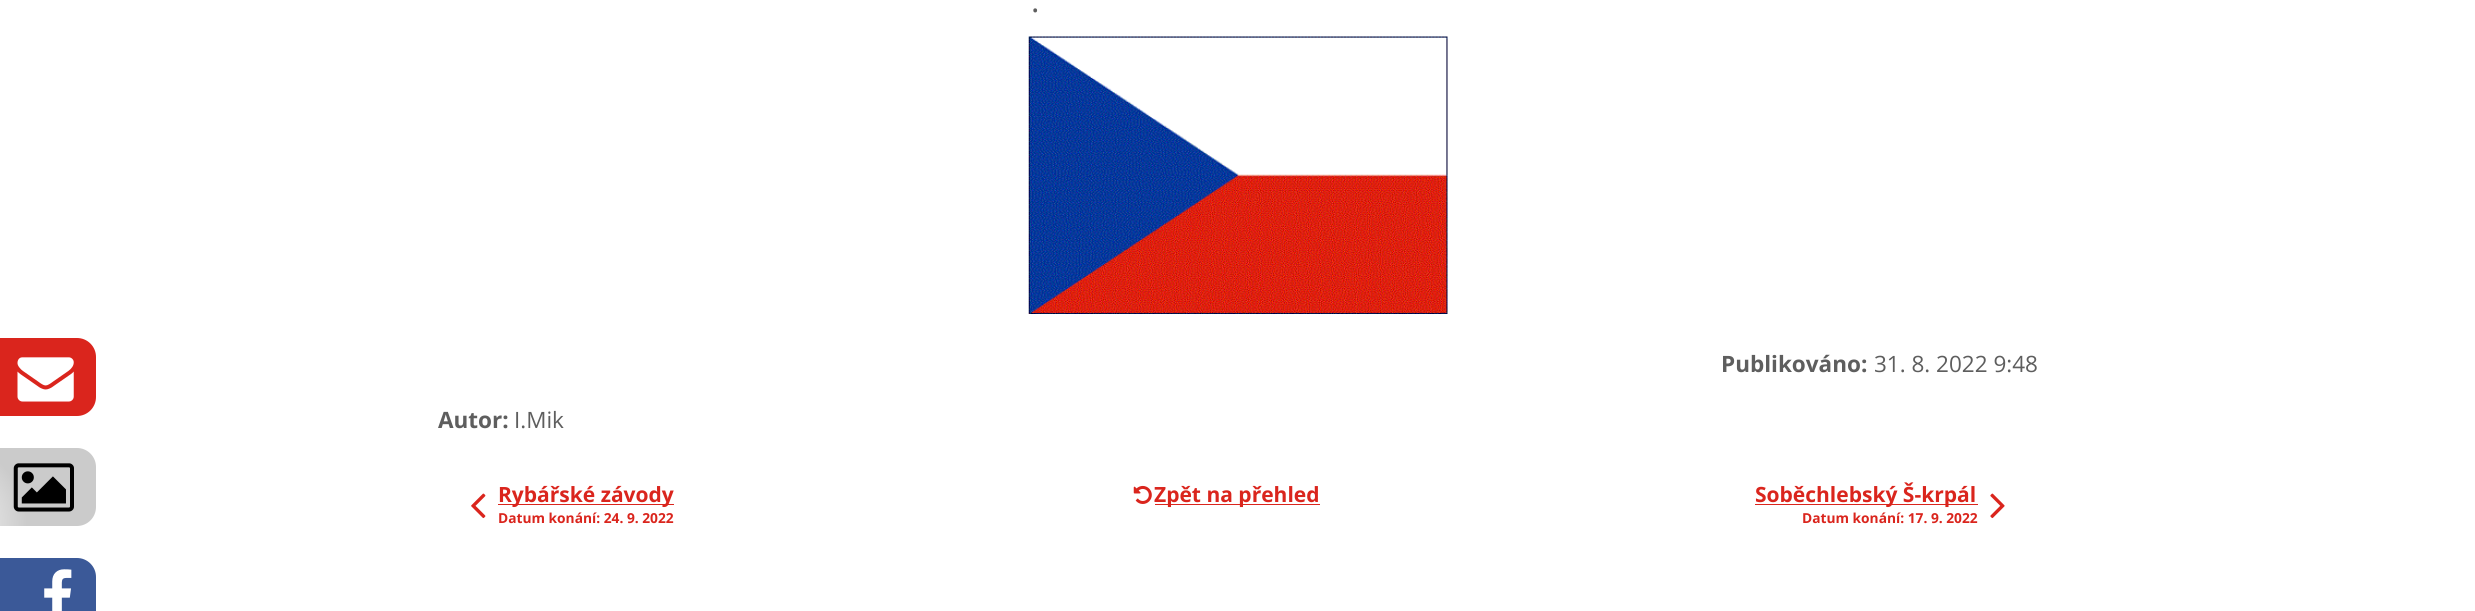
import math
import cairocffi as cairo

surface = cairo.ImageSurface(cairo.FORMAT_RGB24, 2475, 611)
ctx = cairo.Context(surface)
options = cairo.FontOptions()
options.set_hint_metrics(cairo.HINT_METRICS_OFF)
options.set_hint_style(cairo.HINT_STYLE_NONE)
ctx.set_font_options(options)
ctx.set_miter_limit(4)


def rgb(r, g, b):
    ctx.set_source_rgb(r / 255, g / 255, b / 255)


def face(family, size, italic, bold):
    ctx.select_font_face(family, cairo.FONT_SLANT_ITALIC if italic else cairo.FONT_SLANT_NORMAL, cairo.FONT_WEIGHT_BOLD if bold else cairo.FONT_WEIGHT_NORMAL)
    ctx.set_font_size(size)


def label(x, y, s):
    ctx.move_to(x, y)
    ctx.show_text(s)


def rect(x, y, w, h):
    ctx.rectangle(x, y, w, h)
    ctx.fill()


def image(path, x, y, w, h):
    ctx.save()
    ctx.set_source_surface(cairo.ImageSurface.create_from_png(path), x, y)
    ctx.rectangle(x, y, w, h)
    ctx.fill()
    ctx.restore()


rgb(255, 255, 255)
ctx.paint()
rgb(218, 37, 29)
ctx.new_path()
ctx.move_to(-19, 338)
ctx.line_to(77, 338)
ctx.curve_to(87.5, 338, 96, 346.5, 96, 357)
ctx.line_to(96, 397)
ctx.curve_to(96, 407.5, 87.5, 416, 77, 416)
ctx.line_to(-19, 416)
ctx.close_path()
ctx.fill()
image('image0.png', 17, 357, 57, 45)
gradient = cairo.RadialGradient(-61, 526, 0, -61, 526, 176)
gradient.add_color_stop_rgba(0, 1, 1, 1, 1)
gradient.add_color_stop_rgba(0.5, 0.796, 0.796, 0.796, 1)
ctx.set_source(gradient)
ctx.new_path()
ctx.move_to(-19, 448)
ctx.line_to(77, 448)
ctx.curve_to(87.5, 448, 96, 456.5, 96, 467)
ctx.line_to(96, 507)
ctx.curve_to(96, 517.5, 87.5, 526, 77, 526)
ctx.line_to(-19, 526)
ctx.close_path()
ctx.fill()
image('image1.png', 13, 463, 61, 49)
rgb(59, 89, 152)
ctx.new_path()
ctx.move_to(-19, 558)
ctx.line_to(77, 558)
ctx.curve_to(87.5, 558, 96, 566.5, 96, 577)
ctx.line_to(96, 611)
ctx.curve_to(96, 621.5, 87.5, 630, 77, 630)
ctx.line_to(-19, 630)
ctx.close_path()
ctx.fill()
image('image2.png', 44, 569, 28, 42)
face('Open Sans', 32, 0, 0)
rgb(94, 94, 94)
label(1031, 12, '.')
image('image3.png', 1028, 36, 420, 278)
face('Open Sans', 22.5, 0, 1)
label(1721, 372, 'Publikováno:')
face('Open Sans', 22.5, 0, 0)
label(1874, 372, '31. 8. 2022 9:48')
face('Open Sans', 22.5, 0, 1)
label(438, 428, 'Autor:')
face('Open Sans', 22.5, 0, 0)
label(514, 428, 'I.Mik')
image('image4.png', 471, 493, 15, 26)
rgb(218, 37, 29)
rect(498, 504, 176, 1)
face('Open Sans', 21, 0, 1)
label(498, 502, 'Rybářské závody')
face('Open Sans', 13.75, 0, 1)
label(498, 523, 'Datum konání: 24. 9. 2022')
image('image5.png', 1133, 485, 19, 19)
rect(1155, 504, 165, 1)
face('Open Sans', 21, 0, 1)
label(1154, 502, 'Zpět na přehled')
rect(1755, 504, 223, 1)
label(1755, 502, 'Soběchlebský Š-krpál')
face('Open Sans', 13.75, 0, 1)
label(1802, 523, 'Datum konání: 17. 9. 2022')
image('image6.png', 1990, 493, 15, 26)
surface.write_to_png('render.png')
